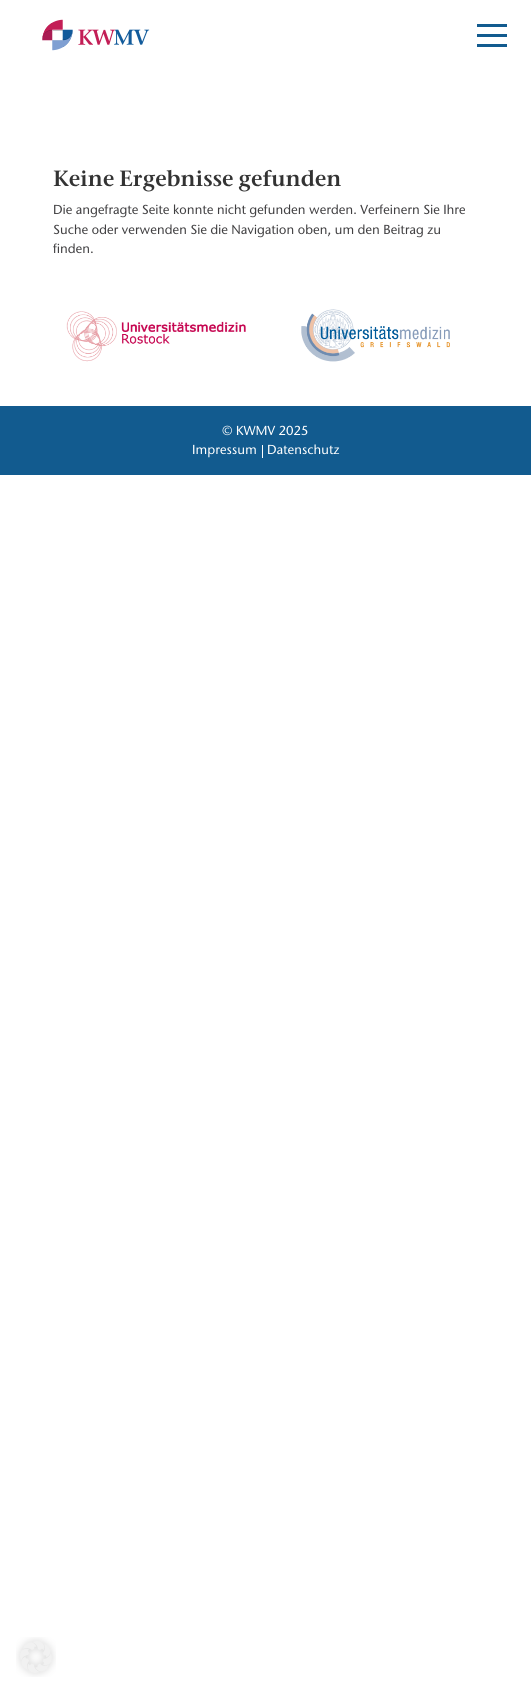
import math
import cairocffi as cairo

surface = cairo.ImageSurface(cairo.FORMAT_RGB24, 531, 1693)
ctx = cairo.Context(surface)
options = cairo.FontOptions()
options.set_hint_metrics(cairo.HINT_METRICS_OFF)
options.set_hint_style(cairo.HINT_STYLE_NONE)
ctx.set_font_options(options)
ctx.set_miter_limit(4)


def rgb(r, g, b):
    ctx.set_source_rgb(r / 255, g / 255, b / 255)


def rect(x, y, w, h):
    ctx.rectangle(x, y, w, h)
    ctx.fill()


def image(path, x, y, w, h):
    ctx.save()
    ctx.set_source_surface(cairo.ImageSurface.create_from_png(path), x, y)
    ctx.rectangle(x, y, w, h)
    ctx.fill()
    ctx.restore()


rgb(255, 255, 255)
ctx.paint()
image('image0.png', 42, 19, 108, 32)
rgb(18, 91, 143)
rect(477, 24, 30, 3)
rect(477, 34, 30, 3)
rect(477, 44, 30, 3)
image('image1.png', 53, 169, 288, 23)
image('image2.png', 54, 204, 411, 14)
image('image3.png', 53, 224, 387, 14)
image('image4.png', 53, 243, 40, 11)
rect(0, 406, 531, 69)
image('image5.png', 66, 311, 180, 51)
image('image6.png', 301, 309, 149, 53)
image('image7.png', 222, 425, 86, 11)
image('image8.png', 193, 444, 63, 14)
rgb(255, 255, 255)
rect(262, 445, 1, 13)
image('image9.png', 268, 444, 72, 11)
image('image10.png', 16, 1637, 40, 40)
surface.write_to_png('render.png')
